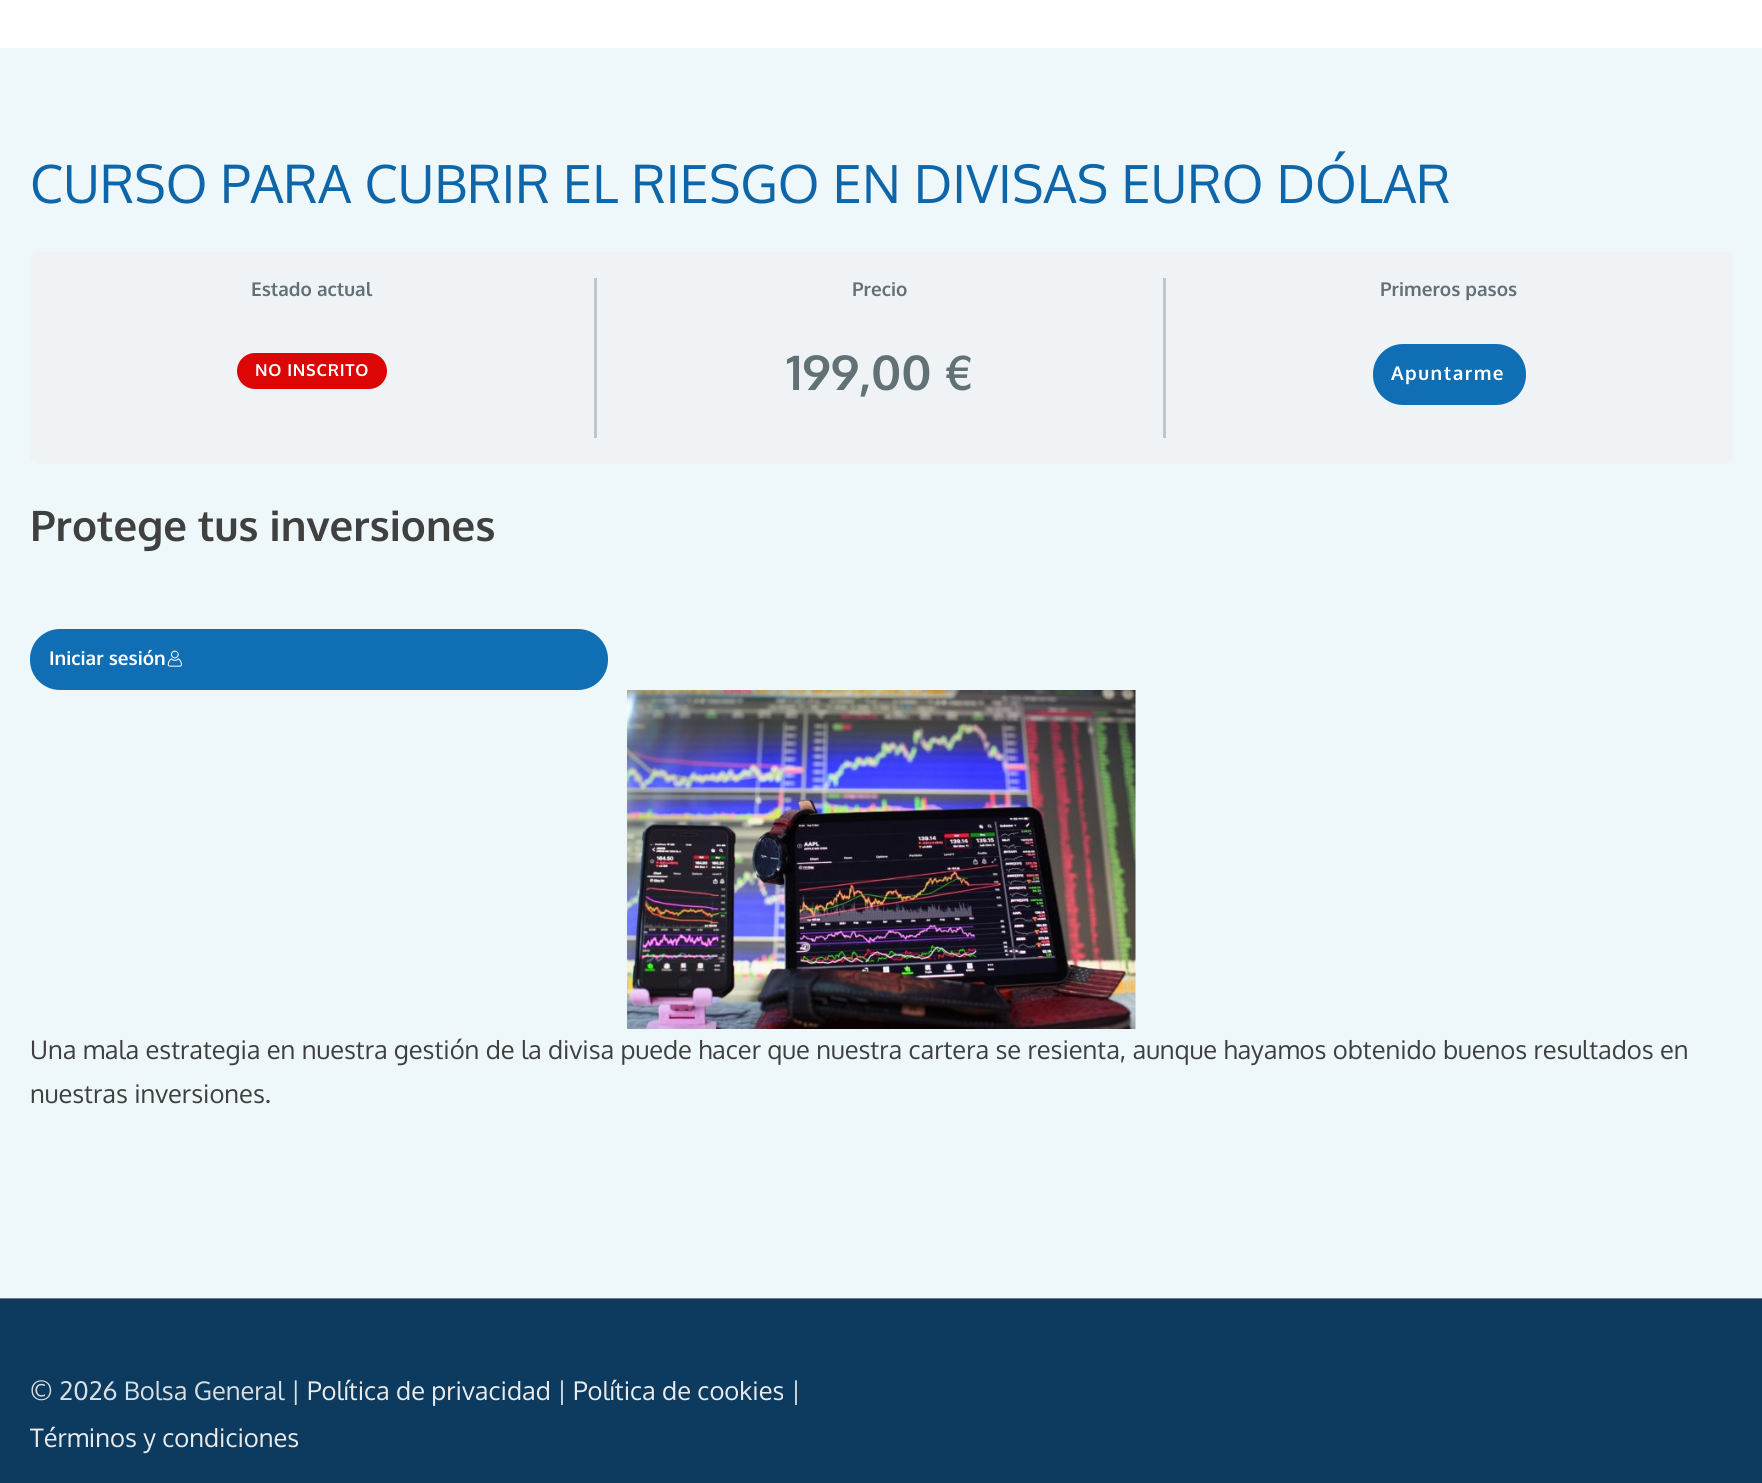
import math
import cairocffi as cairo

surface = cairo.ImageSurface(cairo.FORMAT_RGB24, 1762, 1483)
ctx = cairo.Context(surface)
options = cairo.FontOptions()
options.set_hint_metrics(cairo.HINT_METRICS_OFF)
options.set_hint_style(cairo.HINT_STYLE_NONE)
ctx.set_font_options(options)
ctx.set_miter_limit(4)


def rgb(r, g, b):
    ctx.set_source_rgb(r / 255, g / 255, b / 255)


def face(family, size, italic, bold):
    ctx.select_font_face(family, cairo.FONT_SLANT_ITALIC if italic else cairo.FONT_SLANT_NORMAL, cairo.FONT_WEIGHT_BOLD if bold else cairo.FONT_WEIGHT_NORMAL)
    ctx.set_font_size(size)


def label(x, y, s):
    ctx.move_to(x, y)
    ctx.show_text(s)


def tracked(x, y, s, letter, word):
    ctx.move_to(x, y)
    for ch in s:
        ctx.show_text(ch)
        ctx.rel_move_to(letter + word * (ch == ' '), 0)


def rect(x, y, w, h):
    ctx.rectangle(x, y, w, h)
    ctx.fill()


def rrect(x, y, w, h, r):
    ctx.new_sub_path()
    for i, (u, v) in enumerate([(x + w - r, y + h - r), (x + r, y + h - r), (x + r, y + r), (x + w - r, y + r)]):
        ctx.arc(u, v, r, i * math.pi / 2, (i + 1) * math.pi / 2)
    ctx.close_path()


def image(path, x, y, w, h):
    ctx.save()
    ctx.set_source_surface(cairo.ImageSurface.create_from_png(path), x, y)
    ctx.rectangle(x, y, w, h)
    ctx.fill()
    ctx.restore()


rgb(238, 247, 250)
ctx.paint()
rgb(255, 255, 255)
rect(0, 0, 1762, 48)
face('Oxygen', 52.5, 0, 0)
rgb(14, 102, 169)
label(30, 203, 'CURSO PARA CUBRIR EL RIESGO EN DIVISAS EURO DÓLAR')
rgb(240, 243, 246)
rrect(30, 252, 1703, 212, 9)
ctx.fill()
rgb(190, 197, 203)
rect(594, 278, 3, 160)
face('Oxygen', 19, 0, 1)
rgb(97, 113, 117)
label(251, 296, 'Estado actual')
rgb(221, 6, 6)
rrect(237, 353, 150, 36, 18)
ctx.fill()
face('Oxygen', 16.5, 0, 1)
rgb(255, 255, 255)
tracked(255, 376, 'NO INSCRITO', 0.75, 0)
rgb(190, 197, 203)
rect(1163, 278, 3, 160)
face('Oxygen', 19, 0, 1)
rgb(97, 113, 117)
label(852, 296, 'Precio')
face('Oxygen', 48, 0, 1)
label(786, 390, '199,00 €')
face('Oxygen', 19, 0, 1)
label(1380, 296, 'Primeros pasos')
rgb(16, 110, 180)
rrect(1373, 344, 153, 61, 30)
ctx.fill()
rgb(255, 255, 255)
tracked(1391, 380, 'Apuntarme', 1.5, 0)
face('Oxygen', 42, 0, 1)
rgb(64, 64, 64)
label(30, 541, 'Protege tus inversiones')
rgb(16, 110, 180)
rrect(30, 629, 578, 61, 30)
ctx.fill()
face('Oxygen', 19, 0, 1)
rgb(255, 255, 255)
label(49, 665, 'Iniciar sesión')
image('image0.png', 167, 650, 15, 17)
image('image1.png', 627, 690, 509, 339)
face('Oxygen', 25.5, 0, 0)
rgb(64, 64, 64)
label(30, 1059, 'Una mala estrategia en nuestra gestión de la divisa puede hacer que nuestra cartera se resienta, aunque hayamos obtenido buenos resultados en')
label(30, 1103, 'nuestras inversiones.')
rgb(122, 122, 122)
rect(0, 1298, 1762, 1)
rgb(12, 59, 95)
rect(0, 1299, 1762, 184)
rgb(217, 222, 224)
label(30, 1400, '© 2026 Bolsa General |')
rgb(234, 234, 234)
label(307, 1400, 'Política de privacidad')
rgb(217, 222, 224)
label(557, 1400, '|')
rgb(234, 234, 234)
label(573, 1400, 'Política de cookies')
rgb(217, 222, 224)
label(791, 1400, '|')
rgb(234, 234, 234)
label(30, 1447, 'Términos y condiciones')
surface.write_to_png('render.png')
